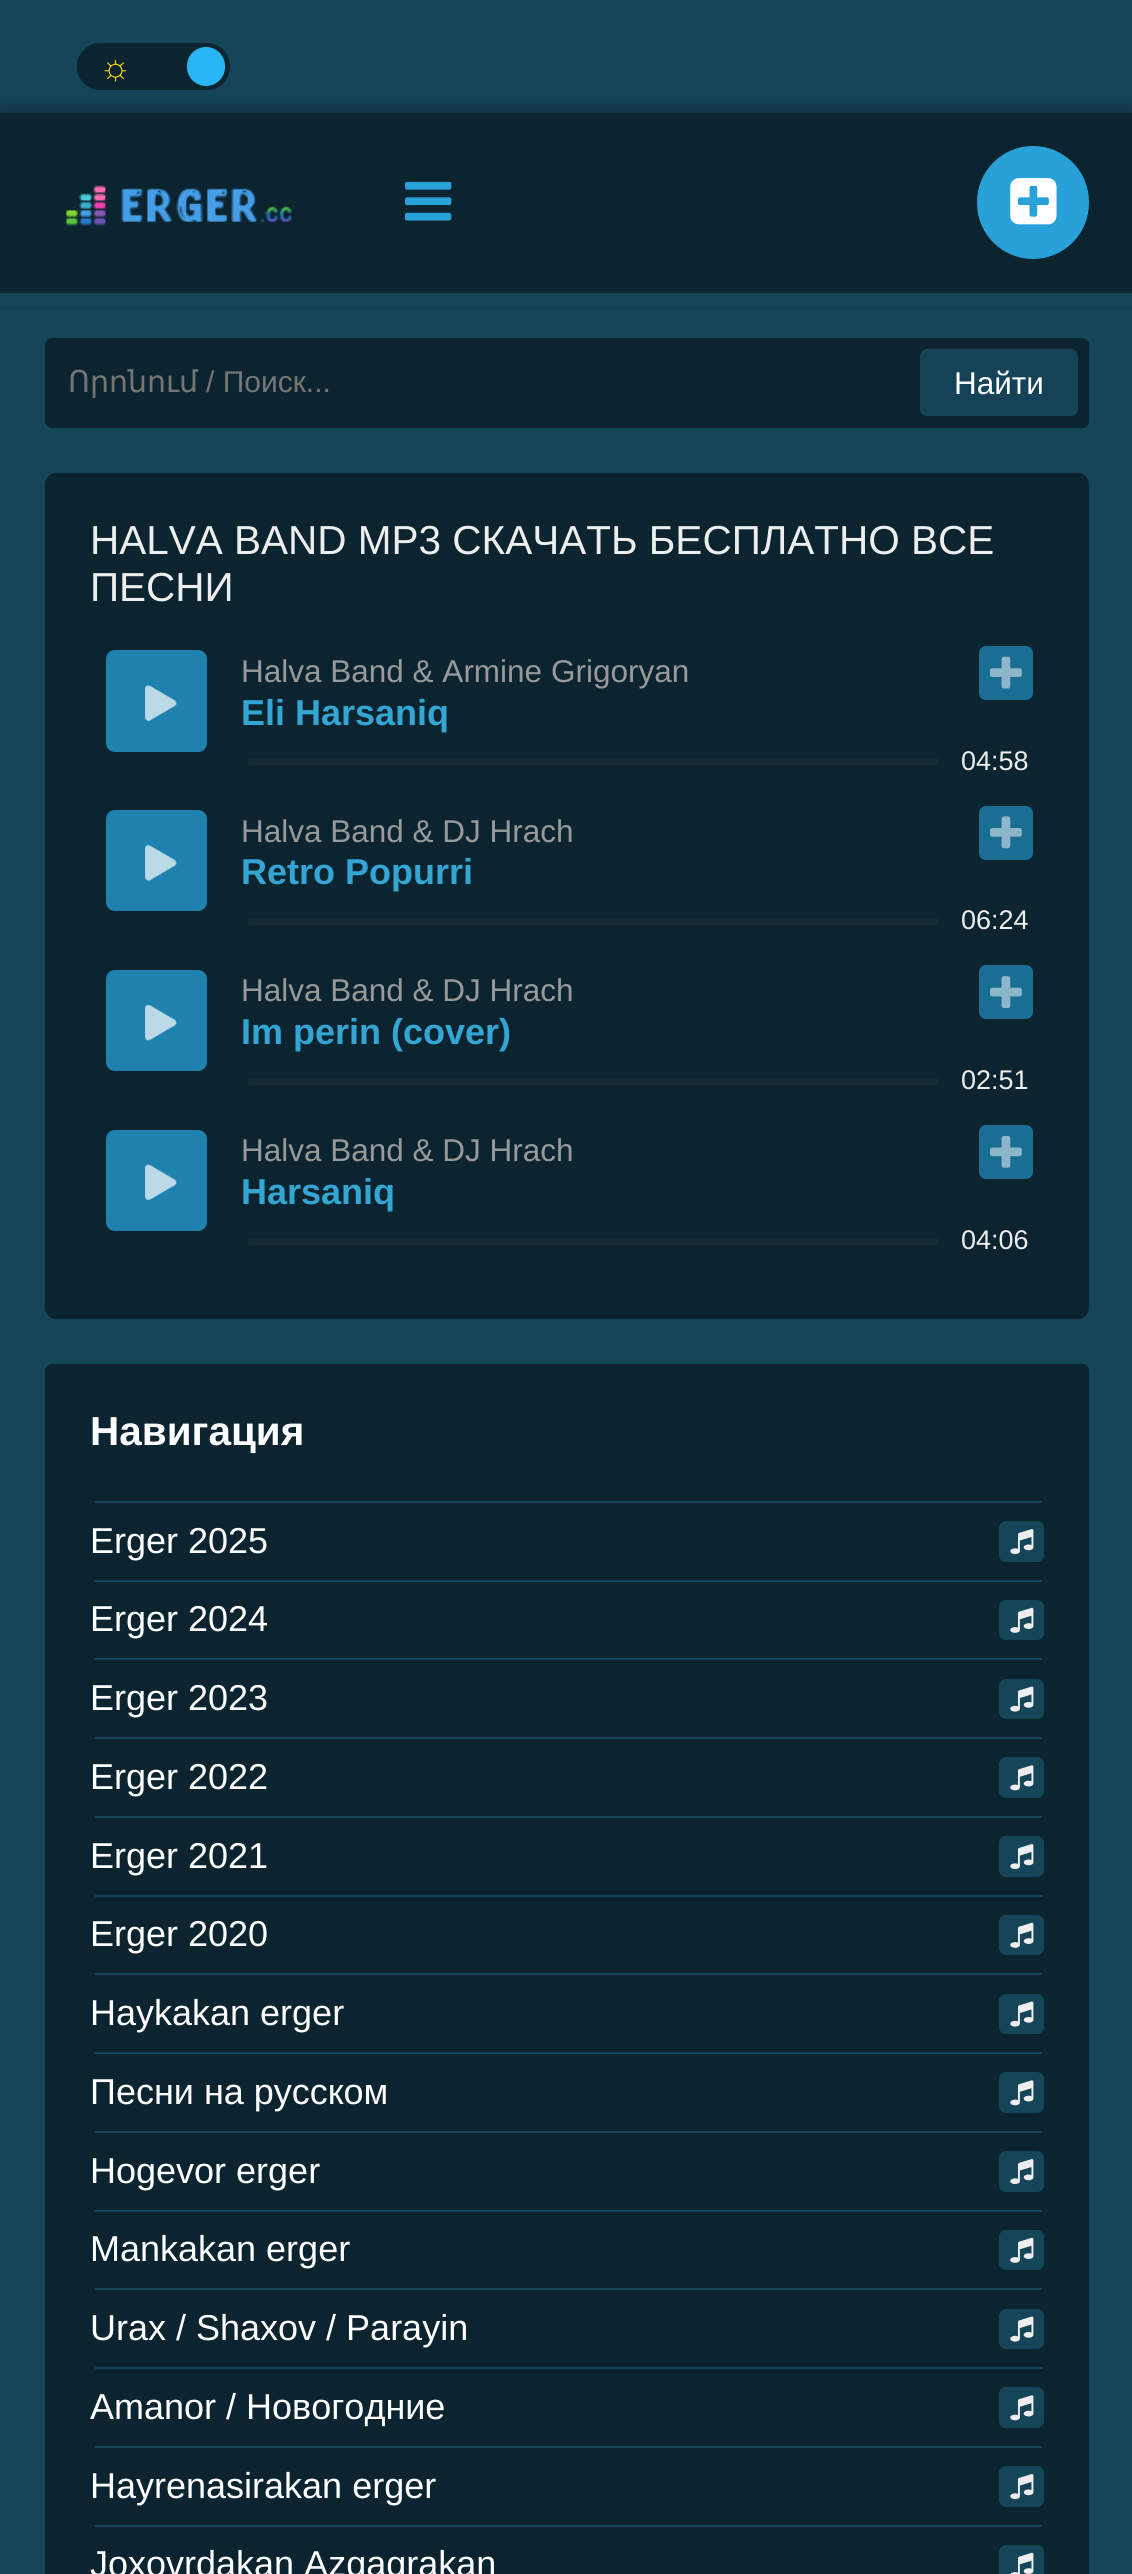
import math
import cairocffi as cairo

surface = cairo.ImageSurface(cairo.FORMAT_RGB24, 1132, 2574)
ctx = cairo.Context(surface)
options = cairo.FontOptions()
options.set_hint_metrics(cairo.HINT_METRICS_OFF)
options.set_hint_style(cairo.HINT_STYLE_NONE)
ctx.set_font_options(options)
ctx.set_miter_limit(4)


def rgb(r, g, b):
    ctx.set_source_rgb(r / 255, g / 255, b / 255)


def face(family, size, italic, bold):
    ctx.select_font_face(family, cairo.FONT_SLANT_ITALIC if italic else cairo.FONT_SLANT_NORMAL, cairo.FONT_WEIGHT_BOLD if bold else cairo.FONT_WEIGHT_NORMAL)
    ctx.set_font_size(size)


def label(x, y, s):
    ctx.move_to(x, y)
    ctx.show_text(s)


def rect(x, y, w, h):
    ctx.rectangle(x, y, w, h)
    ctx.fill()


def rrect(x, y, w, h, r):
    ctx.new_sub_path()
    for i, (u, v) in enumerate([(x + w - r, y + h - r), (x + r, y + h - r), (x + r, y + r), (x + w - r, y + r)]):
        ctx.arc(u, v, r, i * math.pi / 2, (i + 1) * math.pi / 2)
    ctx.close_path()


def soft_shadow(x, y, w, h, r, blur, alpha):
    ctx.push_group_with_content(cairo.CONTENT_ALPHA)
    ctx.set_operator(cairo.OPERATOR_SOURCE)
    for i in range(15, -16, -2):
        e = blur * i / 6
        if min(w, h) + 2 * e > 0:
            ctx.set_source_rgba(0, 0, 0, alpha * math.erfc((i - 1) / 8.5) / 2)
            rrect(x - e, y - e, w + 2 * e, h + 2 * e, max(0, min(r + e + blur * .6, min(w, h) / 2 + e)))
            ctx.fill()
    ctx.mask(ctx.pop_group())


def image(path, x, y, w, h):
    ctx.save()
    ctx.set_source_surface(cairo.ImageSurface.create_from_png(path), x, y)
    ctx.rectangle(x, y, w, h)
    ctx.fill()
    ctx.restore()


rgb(21, 69, 89)
ctx.paint()
rgb(11, 36, 47)
rrect(77, 43, 153, 47, 23)
ctx.fill()
face('Liberation Sans', 36, 0, 1)
rgb(255, 219, 0)
label(99, 79, '☼')
rgb(41, 182, 246)
rrect(187, 47, 38, 39, 19)
ctx.fill()
rgb(0, 0, 0)
soft_shadow(0, 113, 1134, 180, 0, 11, 0.5)
rgb(11, 36, 47)
rect(0, 113, 1132, 180)
image('image0.png', 66, 185, 226, 41)
image('image1.png', 405, 181, 47, 40)
rgb(40, 161, 216)
rrect(977, 146, 112, 113, 56)
ctx.fill()
image('image2.png', 1010, 178, 47, 47)
rgb(21, 68, 87)
rect(0, 293, 1132, 14)
rgb(11, 36, 47)
rrect(45, 338, 1044, 90, 7)
ctx.fill()
ctx.save()
ctx.rectangle(68, 365, 886, 33)
ctx.clip()
face('DejaVu Sans', 30, 0, 0)
rgb(117, 117, 117)
label(68, 392, 'Որոնում')
ctx.restore()
face('Liberation Sans', 30, 0, 0)
rgb(117, 117, 117)
label(206, 392, '/ Поиск...')
rgb(21, 66, 86)
rrect(920, 349, 158, 67, 7)
ctx.fill()
face('Liberation Sans', 31.5, 0, 0)
rgb(255, 255, 255)
label(954, 394, 'Найти')
rgb(11, 36, 47)
rrect(45, 473, 1044, 846, 11)
ctx.fill()
face('Liberation Sans', 40.5, 0, 0)
rgb(238, 238, 238)
label(90, 554, 'HALVA BAND MP3 СКАЧАТЬ БЕСПЛАТНО ВСЕ')
label(90, 601, 'ПЕСНИ')
rgb(26, 109, 147)
rrect(979, 646, 54, 54, 7)
ctx.fill()
image('image3.png', 990, 656, 32, 33)
rgb(32, 138, 186)
rrect(106, 650, 101, 102, 9)
ctx.fill()
ctx.set_source_rgba(0.012, 0.043, 0.055, 0.07)
rrect(106, 650, 101, 102, 9)
ctx.fill()
image('image4.png', 145, 685, 32, 36)
face('Liberation Sans', 31.5, 0, 0)
rgb(153, 153, 153)
label(241, 682, 'Halva Band & Armine Grigoryan')
face('Liberation Sans', 36, 0, 1)
rgb(52, 166, 212)
label(241, 725, 'Eli Harsaniq')
rgb(20, 43, 53)
ctx.new_path()
ctx.move_to(251.5, 758)
ctx.line_to(938, 758)
ctx.line_to(938, 765)
ctx.line_to(251.5, 765)
ctx.curve_to(249.5, 765, 248, 763.5, 248, 761.5)
ctx.curve_to(248, 759.5, 249.5, 758, 251.5, 758)
ctx.close_path()
ctx.fill()
face('Liberation Sans', 27, 0, 0)
rgb(238, 238, 238)
label(961, 770, '04:58')
rgb(26, 109, 147)
rrect(979, 806, 54, 54, 7)
ctx.fill()
image('image5.png', 990, 816, 32, 33)
rgb(32, 138, 186)
rrect(106, 810, 101, 101, 9)
ctx.fill()
ctx.set_source_rgba(0.012, 0.043, 0.055, 0.07)
rrect(106, 810, 101, 101, 9)
ctx.fill()
image('image6.png', 145, 845, 32, 36)
face('Liberation Sans', 31.5, 0, 0)
rgb(153, 153, 153)
label(241, 842, 'Halva Band & DJ Hrach')
face('Liberation Sans', 36, 0, 1)
rgb(52, 166, 212)
label(241, 884, 'Retro Popurri')
rgb(20, 43, 53)
ctx.new_path()
ctx.move_to(251.5, 918)
ctx.line_to(938, 918)
ctx.line_to(938, 925)
ctx.line_to(251.5, 925)
ctx.curve_to(249.5, 925, 248, 923.5, 248, 921.5)
ctx.curve_to(248, 919.5, 249.5, 918, 251.5, 918)
ctx.close_path()
ctx.fill()
face('Liberation Sans', 27, 0, 0)
rgb(238, 238, 238)
label(961, 929, '06:24')
rgb(26, 109, 147)
rrect(979, 965, 54, 54, 7)
ctx.fill()
image('image7.png', 990, 976, 32, 32)
rgb(32, 138, 186)
rrect(106, 970, 101, 101, 9)
ctx.fill()
ctx.set_source_rgba(0.012, 0.043, 0.055, 0.07)
rrect(106, 970, 101, 101, 9)
ctx.fill()
image('image8.png', 145, 1005, 32, 36)
face('Liberation Sans', 31.5, 0, 0)
rgb(153, 153, 153)
label(241, 1001, 'Halva Band & DJ Hrach')
face('Liberation Sans', 36, 0, 1)
rgb(52, 166, 212)
label(241, 1044, 'Im perin (cover)')
rgb(20, 43, 53)
ctx.new_path()
ctx.move_to(251.5, 1078)
ctx.line_to(938, 1078)
ctx.line_to(938, 1085)
ctx.line_to(251.5, 1085)
ctx.curve_to(249.5, 1085, 248, 1083.5, 248, 1081.5)
ctx.curve_to(248, 1079.5, 249.5, 1078, 251.5, 1078)
ctx.close_path()
ctx.fill()
face('Liberation Sans', 27, 0, 0)
rgb(238, 238, 238)
label(961, 1089, '02:51')
rgb(26, 109, 147)
rrect(979, 1125, 54, 54, 7)
ctx.fill()
image('image9.png', 990, 1135, 32, 33)
rgb(32, 138, 186)
rrect(106, 1130, 101, 101, 9)
ctx.fill()
ctx.set_source_rgba(0.012, 0.043, 0.055, 0.07)
rrect(106, 1130, 101, 101, 9)
ctx.fill()
image('image10.png', 145, 1164, 32, 37)
face('Liberation Sans', 31.5, 0, 0)
rgb(153, 153, 153)
label(241, 1161, 'Halva Band & DJ Hrach')
face('Liberation Sans', 36, 0, 1)
rgb(52, 166, 212)
label(241, 1204, 'Harsaniq')
rgb(20, 43, 53)
ctx.new_path()
ctx.move_to(251.5, 1238)
ctx.line_to(938, 1238)
ctx.line_to(938, 1245)
ctx.line_to(251.5, 1245)
ctx.curve_to(249.5, 1245, 248, 1243.5, 248, 1241.5)
ctx.curve_to(248, 1239.5, 249.5, 1238, 251.5, 1238)
ctx.close_path()
ctx.fill()
face('Liberation Sans', 27, 0, 0)
rgb(238, 238, 238)
label(961, 1249, '04:06')
rgb(11, 36, 47)
rrect(45, 1364, 1044, 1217, 7)
ctx.fill()
face('Liberation Sans', 40.5, 0, 1)
rgb(255, 255, 255)
label(90, 1445, 'Навигация')
rgb(21, 69, 89)
rect(95, 1501, 947, 2)
face('Liberation Sans', 36, 0, 0)
rgb(255, 255, 255)
label(90, 1553, 'Erger 2025')
rgb(21, 69, 89)
rrect(999, 1521, 45, 41, 7)
ctx.fill()
image('image11.png', 1010, 1529, 24, 26)
rect(95, 1580, 947, 2)
rgb(255, 255, 255)
label(90, 1631, 'Erger 2024')
rgb(21, 69, 89)
rrect(999, 1600, 45, 40, 7)
ctx.fill()
image('image12.png', 1010, 1607, 24, 26)
rect(95, 1658, 947, 2)
rgb(255, 255, 255)
label(90, 1710, 'Erger 2023')
rgb(21, 69, 89)
rrect(999, 1679, 45, 40, 7)
ctx.fill()
image('image13.png', 1010, 1686, 24, 26)
rect(95, 1737, 947, 2)
rgb(255, 255, 255)
label(90, 1789, 'Erger 2022')
rgb(21, 69, 89)
rrect(999, 1757, 45, 41, 7)
ctx.fill()
image('image14.png', 1010, 1765, 24, 26)
rect(95, 1816, 947, 2)
rgb(255, 255, 255)
label(90, 1868, 'Erger 2021')
rgb(21, 69, 89)
rrect(999, 1836, 45, 41, 7)
ctx.fill()
image('image11.png', 1010, 1844, 24, 26)
rect(95, 1895, 947, 2)
rgb(255, 255, 255)
label(90, 1946, 'Erger 2020')
rgb(21, 69, 89)
rrect(999, 1915, 45, 40, 7)
ctx.fill()
image('image12.png', 1010, 1922, 24, 26)
rect(95, 1973, 947, 2)
rgb(255, 255, 255)
label(90, 2025, 'Haykakan erger')
rgb(21, 69, 89)
rrect(999, 1994, 45, 40, 7)
ctx.fill()
image('image13.png', 1010, 2001, 24, 26)
rect(95, 2052, 947, 2)
rgb(255, 255, 255)
label(90, 2104, 'Песни на русском')
rgb(21, 69, 89)
rrect(999, 2072, 45, 41, 7)
ctx.fill()
image('image14.png', 1010, 2080, 24, 26)
rect(95, 2131, 947, 2)
rgb(255, 255, 255)
label(90, 2183, 'Hogevor erger')
rgb(21, 69, 89)
rrect(999, 2151, 45, 41, 7)
ctx.fill()
image('image11.png', 1010, 2159, 24, 26)
rect(95, 2210, 947, 2)
rgb(255, 255, 255)
label(90, 2261, 'Mankakan erger')
rgb(21, 69, 89)
rrect(999, 2230, 45, 40, 7)
ctx.fill()
image('image12.png', 1010, 2237, 24, 26)
rect(95, 2288, 947, 2)
rgb(255, 255, 255)
label(90, 2340, 'Urax / Shaxov / Parayin')
rgb(21, 69, 89)
rrect(999, 2309, 45, 40, 7)
ctx.fill()
image('image13.png', 1010, 2316, 24, 26)
rect(95, 2367, 947, 2)
rgb(255, 255, 255)
label(90, 2419, 'Amanor / Новогодние')
rgb(21, 69, 89)
rrect(999, 2387, 45, 41, 7)
ctx.fill()
image('image14.png', 1010, 2395, 24, 26)
rect(95, 2446, 947, 2)
rgb(255, 255, 255)
label(90, 2498, 'Hayrenasirakan erger')
rgb(21, 69, 89)
rrect(999, 2466, 45, 41, 7)
ctx.fill()
image('image11.png', 1010, 2474, 24, 26)
rect(95, 2525, 947, 2)
rgb(255, 255, 255)
label(90, 2576, 'Joxovrdakan Azgagrakan')
rgb(21, 69, 89)
rrect(999, 2545, 45, 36, 7)
ctx.fill()
image('image15.png', 1010, 2552, 24, 22)
surface.write_to_png('render.png')
